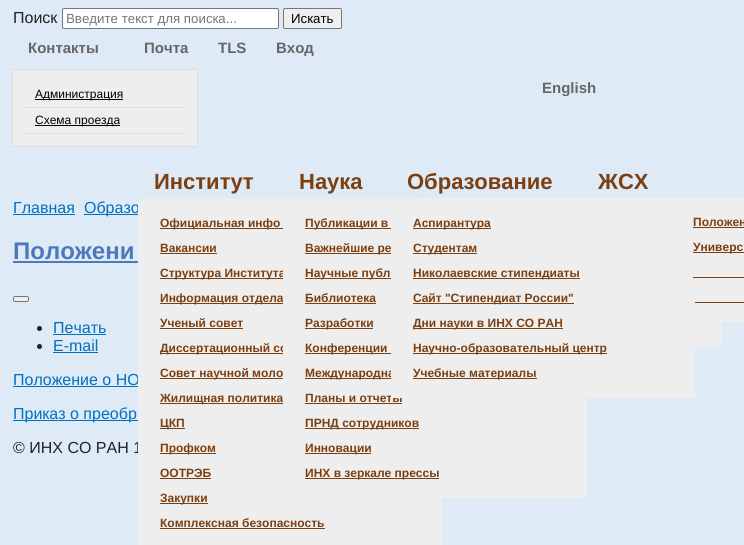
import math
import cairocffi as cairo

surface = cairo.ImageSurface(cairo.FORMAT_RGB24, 744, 545)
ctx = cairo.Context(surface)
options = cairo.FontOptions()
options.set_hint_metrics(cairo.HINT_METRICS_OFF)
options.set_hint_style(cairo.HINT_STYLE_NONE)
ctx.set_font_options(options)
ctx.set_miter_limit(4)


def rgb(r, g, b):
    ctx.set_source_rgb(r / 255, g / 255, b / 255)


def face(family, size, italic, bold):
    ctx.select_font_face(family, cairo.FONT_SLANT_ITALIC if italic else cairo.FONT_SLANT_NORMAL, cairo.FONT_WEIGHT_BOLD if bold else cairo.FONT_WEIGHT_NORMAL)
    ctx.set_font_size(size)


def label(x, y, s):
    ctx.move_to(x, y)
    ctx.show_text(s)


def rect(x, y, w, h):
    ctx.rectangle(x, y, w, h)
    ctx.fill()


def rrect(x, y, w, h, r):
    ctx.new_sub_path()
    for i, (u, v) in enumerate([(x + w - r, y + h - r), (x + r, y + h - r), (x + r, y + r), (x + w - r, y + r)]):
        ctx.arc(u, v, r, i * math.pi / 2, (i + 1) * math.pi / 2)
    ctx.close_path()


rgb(222, 234, 246)
ctx.paint()
face('Liberation Sans', 16, 0, 0)
rgb(34, 34, 34)
label(13, 23, 'Поиск')
rgb(255, 255, 255)
rrect(62.5, 8.5, 216, 20, 1.5)
ctx.fill_preserve()
rgb(118, 118, 118)
ctx.set_line_width(1)
ctx.stroke()
face('Liberation Sans', 13.3, 0, 0)
rgb(117, 117, 117)
label(66, 23, 'Введите текст для поиска...')
rgb(239, 239, 239)
rrect(283.5, 8.5, 58, 20, 1.5)
ctx.fill_preserve()
rgb(118, 118, 118)
ctx.stroke()
rgb(0, 0, 0)
label(291, 23, 'Искать')
face('Liberation Sans', 15, 0, 1)
rgb(102, 102, 102)
label(28, 53, 'Контакты')
rgb(238, 238, 238)
ctx.rectangle(12.5, 69.5, 185, 77)
ctx.fill_preserve()
rgb(221, 221, 221)
ctx.stroke()
rect(25, 107, 160, 1)
rgb(0, 0, 0)
rect(35, 99, 88, 1)
face('Liberation Sans', 12, 0, 0)
label(35, 98, 'Администрация')
rgb(221, 221, 221)
rect(25, 133, 160, 1)
rgb(0, 0, 0)
rect(35, 125, 85, 1)
label(35, 124, 'Схема проезда')
face('Liberation Sans', 15, 0, 1)
rgb(102, 102, 102)
label(144, 53, 'Почта')
label(218, 53, 'TLS')
label(276, 53, 'Вход')
label(542, 93, 'English')
face('Liberation Sans', 16, 0, 0)
rgb(0, 112, 192)
label(13, 213, 'Главная')
rect(13, 214, 62, 1)
rect(84, 214, 54, 1)
label(84, 213, 'Образо')
face('Liberation Sans', 22, 0, 1)
rgb(124, 63, 16)
label(154, 189, 'Институт')
face('Liberation Sans', 16, 0, 0)
rgb(0, 112, 192)
label(13, 385, 'Положение о НО')
rgb(34, 34, 34)
label(13, 453, '© ИНХ СО РАН 1')
rgb(238, 238, 238)
rect(138, 199, 304, 346)
rect(418, 198, 253, 1)
rgb(124, 63, 16)
rect(160, 228, 123, 1)
face('Liberation Sans', 12, 0, 1)
label(160, 227, 'Официальная инфо')
label(160, 252, 'Вакансии')
rect(160, 253, 57, 1)
rect(160, 278, 125, 1)
label(160, 277, 'Структура Института')
rect(160, 303, 123, 1)
label(160, 302, 'Информация отдела')
label(160, 327, 'Ученый совет')
rect(160, 328, 83, 1)
rgb(238, 238, 238)
rect(695, 322, 27, 25)
rgb(124, 63, 16)
rect(160, 353, 123, 1)
label(160, 352, 'Диссертационный со')
rect(160, 378, 123, 1)
label(160, 377, 'Совет научной моло')
rect(160, 403, 123, 1)
label(160, 402, 'Жилищная политика')
rect(160, 428, 25, 1)
label(160, 427, 'ЦКП')
rect(160, 453, 56, 1)
label(160, 452, 'Профком')
label(160, 477, 'ООТРЭБ')
rect(160, 478, 51, 1)
rect(160, 503, 48, 1)
label(160, 502, 'Закупки')
label(160, 527, 'Комплексная безопасность')
rect(160, 528, 165, 1)
face('Liberation Sans', 22, 0, 1)
label(299, 189, 'Наука')
rgb(238, 238, 238)
rect(283, 199, 304, 299)
rgb(124, 63, 16)
rect(305, 228, 86, 1)
face('Liberation Sans', 12, 0, 1)
label(305, 227, 'Публикации в')
rect(305, 253, 86, 1)
label(305, 252, 'Важнейшие ре')
rect(305, 278, 86, 1)
label(305, 277, 'Научные публ')
label(305, 302, 'Библиотека')
rect(305, 303, 71, 1)
rgb(238, 238, 238)
rect(695, 272, 49, 50)
rgb(124, 63, 16)
rect(695, 302, 49, 1)
rect(305, 328, 68, 1)
label(305, 327, 'Разработки')
rect(305, 353, 86, 1)
label(305, 352, 'Конференции')
rect(305, 378, 86, 1)
label(305, 377, 'Международна')
label(305, 402, 'Планы и отчеты')
rect(305, 403, 97, 1)
rect(305, 428, 114, 1)
label(305, 427, 'ПРНД сотрудников')
rect(305, 453, 66, 1)
label(305, 452, 'Инновации')
rect(305, 478, 134, 1)
label(305, 477, 'ИНХ в зеркале прессы')
face('Liberation Sans', 22, 0, 1)
label(407, 189, 'Образование')
rgb(238, 238, 238)
rect(391, 199, 304, 199)
rect(671, 198, 73, 74)
face('Liberation Sans', 12, 0, 1)
rgb(124, 63, 16)
label(693, 226, 'Положен')
rect(693, 227, 51, 1)
rect(693, 252, 51, 1)
label(693, 251, 'Универс')
rect(413, 353, 194, 1)
label(413, 352, 'Научно-образовательный центр')
rect(413, 228, 78, 1)
label(413, 227, 'Аспирантура')
rect(413, 253, 64, 1)
label(413, 252, 'Студентам')
rect(693, 277, 51, 1)
rect(413, 278, 167, 1)
label(413, 277, 'Николаевские стипендиаты')
rect(413, 303, 161, 1)
label(413, 302, 'Сайт "Стипендиат России"')
rect(413, 328, 150, 1)
label(413, 327, 'Дни науки в ИНХ СО РАН')
rect(413, 378, 124, 1)
label(413, 377, 'Учебные материалы')
face('Liberation Sans', 22, 0, 1)
label(598, 189, 'ЖСХ')
face('Liberation Sans', 24, 0, 1)
rgb(77, 120, 189)
label(13, 259, 'Положени')
rect(13, 261, 125, 2)
rgb(239, 239, 239)
rrect(13.5, 296.5, 15, 5, 1.5)
ctx.fill_preserve()
rgb(118, 118, 118)
ctx.stroke()
rgb(34, 34, 34)
ctx.arc(39.5, 328.5, 2.5, 0, 2 * math.pi)
ctx.fill()
face('Liberation Sans', 16, 0, 0)
rgb(0, 112, 192)
label(53, 333, 'Печать')
rect(53, 334, 53, 1)
rgb(34, 34, 34)
ctx.new_path()
ctx.arc(39.5, 346.5, 2.5, 0, 2 * math.pi)
ctx.fill()
rgb(0, 112, 192)
label(53, 351, 'E-mail')
rect(53, 352, 45, 1)
rect(13, 386, 125, 1)
rect(13, 420, 125, 1)
label(13, 419, 'Приказ о преобр')
surface.write_to_png('render.png')
